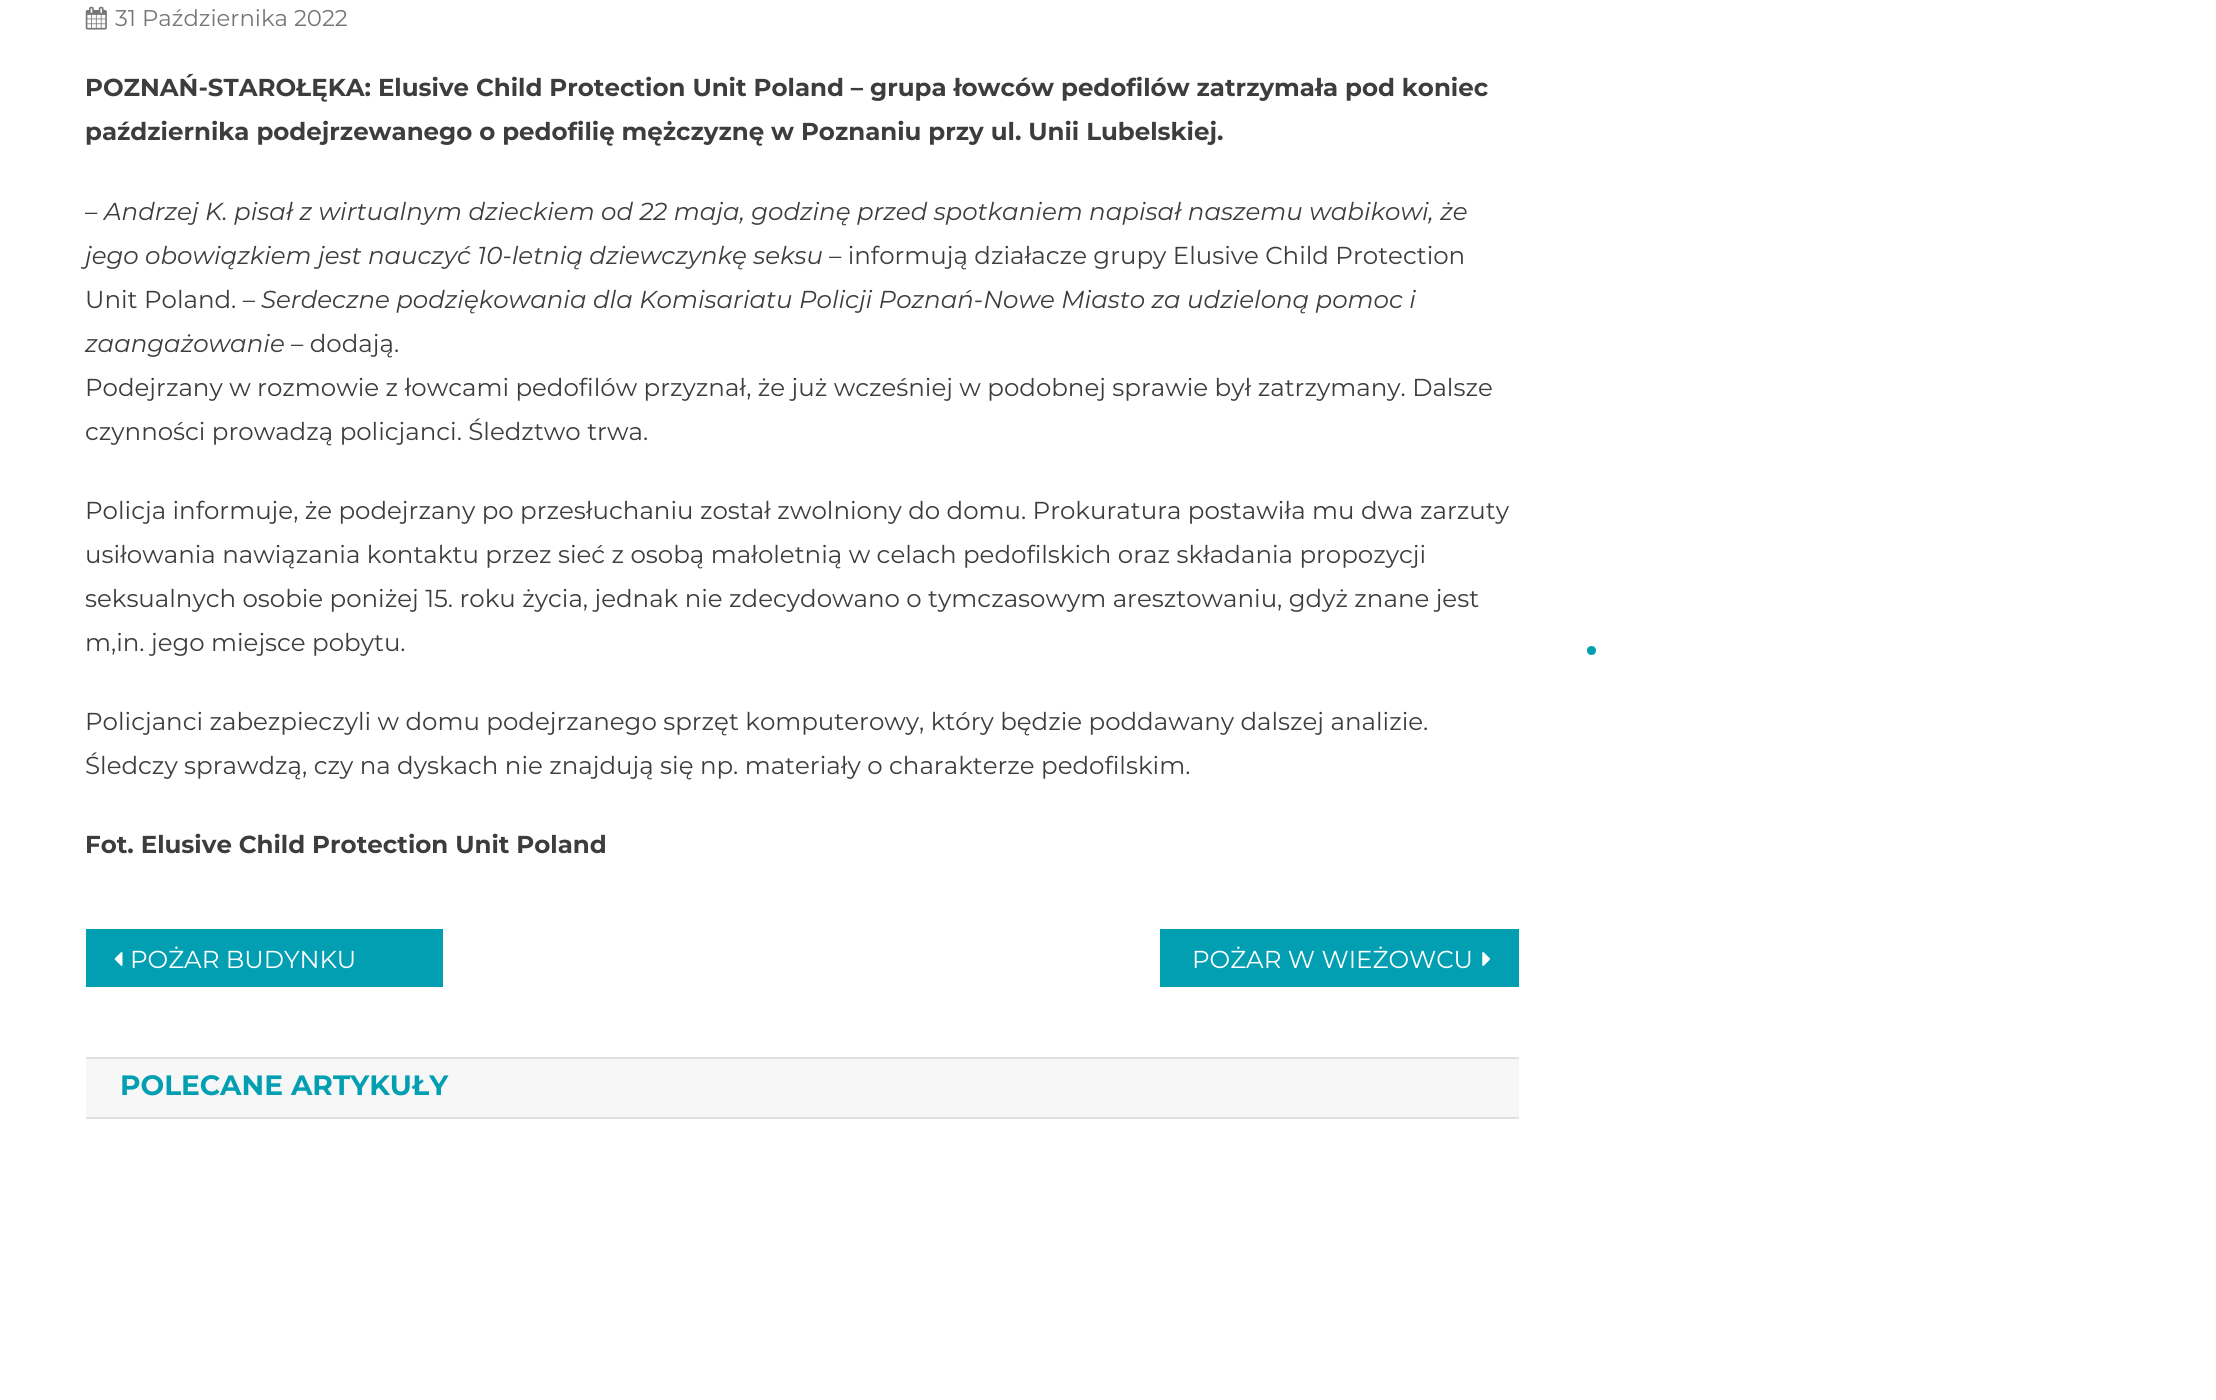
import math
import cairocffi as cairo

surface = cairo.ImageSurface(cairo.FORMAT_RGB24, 2216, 1400)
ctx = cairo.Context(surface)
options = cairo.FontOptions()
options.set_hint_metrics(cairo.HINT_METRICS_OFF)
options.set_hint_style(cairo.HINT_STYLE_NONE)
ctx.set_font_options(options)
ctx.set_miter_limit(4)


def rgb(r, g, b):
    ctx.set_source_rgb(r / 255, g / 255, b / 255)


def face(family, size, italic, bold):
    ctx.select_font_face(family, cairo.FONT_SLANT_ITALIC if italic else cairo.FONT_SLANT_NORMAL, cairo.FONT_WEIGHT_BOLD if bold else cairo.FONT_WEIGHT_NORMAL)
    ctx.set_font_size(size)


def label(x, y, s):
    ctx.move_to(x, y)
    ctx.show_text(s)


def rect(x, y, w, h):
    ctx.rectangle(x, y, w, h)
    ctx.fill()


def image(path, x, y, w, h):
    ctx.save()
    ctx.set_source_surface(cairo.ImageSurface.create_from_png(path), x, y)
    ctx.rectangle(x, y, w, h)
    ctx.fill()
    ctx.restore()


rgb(255, 255, 255)
ctx.paint()
image('image0.png', 85, 6, 22, 24)
face('Montserrat', 22.75, 0, 0)
rgb(118, 118, 118)
label(115, 26, '31 Października 2022')
face('Montserrat', 24.5, 0, 1)
rgb(61, 61, 61)
label(85, 96, 'POZNAŃ-STAROŁĘKA: Elusive Child Protection Unit Poland – grupa łowców pedofilów zatrzymała pod koniec')
label(85, 140, 'października podejrzewanego o pedofilię mężczyznę w Poznaniu przy ul. Unii Lubelskiej.')
face('Montserrat', 24.5, 0, 0)
label(85, 220, '–')
face('Montserrat Thin', 24.5, 1, 0)
label(104, 220, 'Andrzej K. pisał z wirtualnym dzieckiem od 22 maja, godzinę przed spotkaniem napisał naszemu wabikowi, że')
label(85, 264, 'jego obowiązkiem jest nauczyć 10-letnią dziewczynkę seksu')
face('Montserrat', 24.5, 0, 0)
label(829, 264, '– informują działacze grupy Elusive Child Protection')
label(85, 308, 'Unit Poland. –')
face('Montserrat Thin', 24.5, 1, 0)
label(261, 308, 'Serdeczne podziękowania dla Komisariatu Policji Poznań-Nowe Miasto za udzieloną pomoc i')
label(85, 352, 'zaangażowanie')
face('Montserrat', 24.5, 0, 0)
label(291, 352, '– dodają.')
label(85, 396, 'Podejrzany w rozmowie z łowcami pedofilów przyznał, że już wcześniej w podobnej sprawie był zatrzymany. Dalsze')
label(85, 440, 'czynności prowadzą policjanci. Śledztwo trwa.')
label(85, 519, 'Policja informuje, że podejrzany po przesłuchaniu został zwolniony do domu. Prokuratura postawiła mu dwa zarzuty')
label(85, 563, 'usiłowania nawiązania kontaktu przez sieć z osobą małoletnią w celach pedofilskich oraz składania propozycji')
label(85, 607, 'seksualnych osobie poniżej 15. roku życia, jednak nie zdecydowano o tymczasowym aresztowaniu, gdyż znane jest')
label(85, 651, 'm,in. jego miejsce pobytu.')
label(85, 730, 'Policjanci zabezpieczyli w domu podejrzanego sprzęt komputerowy, który będzie poddawany dalszej analizie.')
label(85, 774, 'Śledczy sprawdzą, czy na dyskach nie znajdują się np. materiały o charakterze pedofilskim.')
face('Montserrat', 24.5, 0, 1)
label(85, 853, 'Fot. Elusive Child Protection Unit Poland')
rgb(2, 159, 178)
rect(86, 929, 357, 58)
image('image1.png', 114, 952, 9, 14)
face('Montserrat', 24.5, 0, 0)
rgb(255, 255, 255)
label(130, 968, 'POŻAR BUDYNKU')
rgb(2, 159, 178)
rect(1160, 929, 359, 58)
rgb(255, 255, 255)
label(1192, 968, 'POŻAR W WIEŻOWCU')
image('image2.png', 1482, 952, 8, 14)
rgb(247, 247, 247)
rect(86, 1059, 1433, 58)
rgb(225, 225, 225)
rect(86, 1057, 1433, 2)
rect(86, 1117, 1433, 2)
face('Montserrat', 28, 0, 1)
rgb(2, 159, 178)
label(120, 1095, 'POLECANE ARTYKUŁY')
ctx.new_path()
ctx.arc(1591.5, 650.5, 4.5, 0, 2 * math.pi)
ctx.fill()
surface.write_to_png('render.png')
